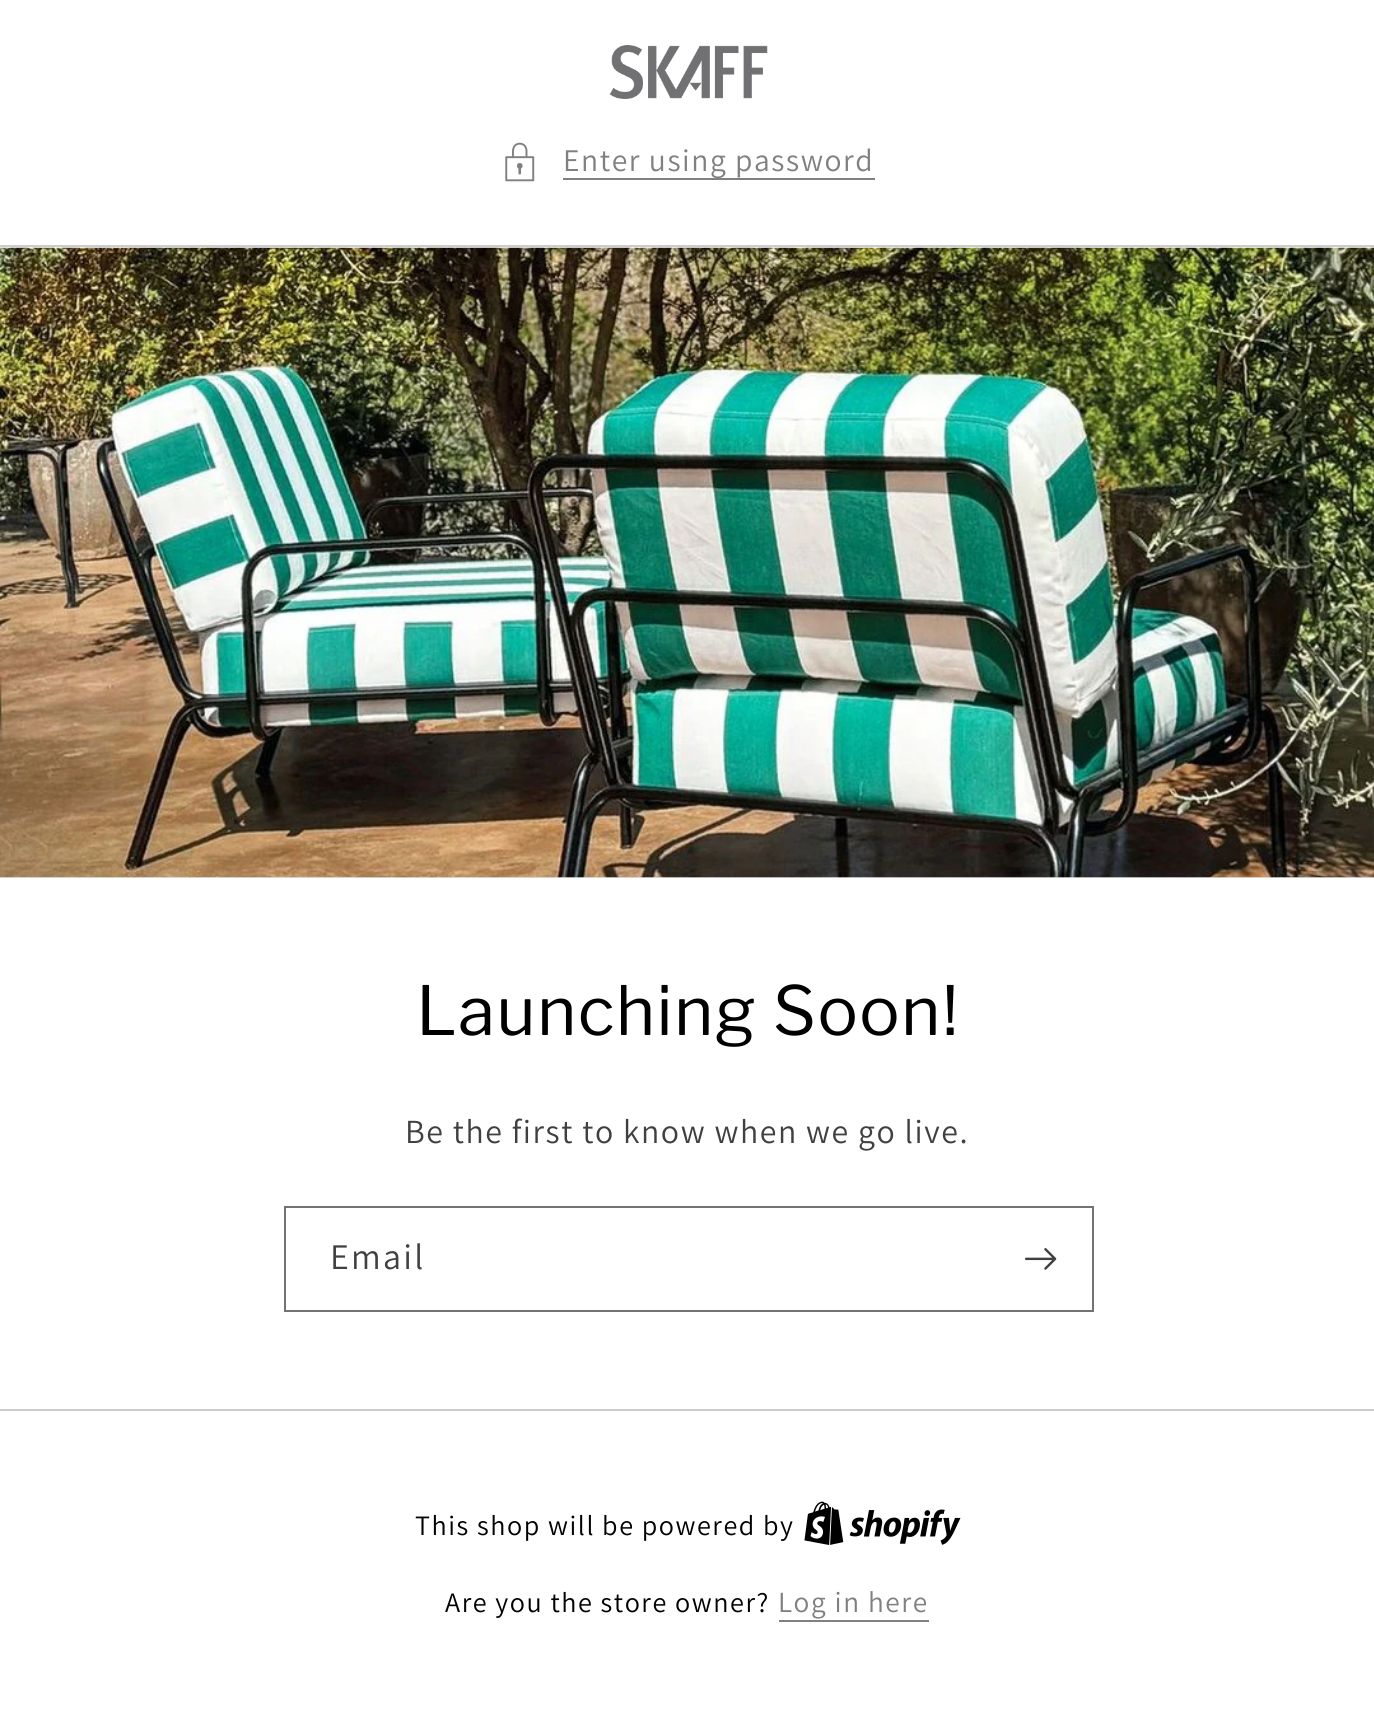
import math
import cairocffi as cairo

surface = cairo.ImageSurface(cairo.FORMAT_RGB24, 1374, 1718)
ctx = cairo.Context(surface)
options = cairo.FontOptions()
options.set_hint_metrics(cairo.HINT_METRICS_OFF)
options.set_hint_style(cairo.HINT_STYLE_NONE)
ctx.set_font_options(options)
ctx.set_miter_limit(4)


def rgb(r, g, b):
    ctx.set_source_rgb(r / 255, g / 255, b / 255)


def face(family, size, italic, bold):
    ctx.select_font_face(family, cairo.FONT_SLANT_ITALIC if italic else cairo.FONT_SLANT_NORMAL, cairo.FONT_WEIGHT_BOLD if bold else cairo.FONT_WEIGHT_NORMAL)
    ctx.set_font_size(size)


def tracked(x, y, s, letter, word):
    ctx.move_to(x, y)
    for ch in s:
        ctx.show_text(ch)
        ctx.rel_move_to(letter + word * (ch == ' '), 0)


def rect(x, y, w, h):
    ctx.rectangle(x, y, w, h)
    ctx.fill()


def image(path, x, y, w, h):
    ctx.save()
    ctx.set_source_surface(cairo.ImageSurface.create_from_png(path), x, y)
    ctx.rectangle(x, y, w, h)
    ctx.fill()
    ctx.restore()


rgb(255, 255, 255)
ctx.paint()
image('image0.png', 609, 45, 159, 54)
image('image1.png', 505, 142, 30, 40)
rgb(128, 128, 128)
rect(563, 178, 312, 2)
face('Assistant', 31.5, 0, 0)
tracked(563, 171, 'Enter using password', 1.55, 0)
rgb(204, 204, 204)
rect(0, 245, 1374, 2)
rgb(230, 230, 230)
rect(0, 877, 1374, 1)
image('image2.png', 0, 247, 1374, 631)
face('Libre Franklin', 67.5, 0, 0)
rgb(0, 0, 0)
tracked(416, 1035, 'Launching Soon!', 1.4, 0)
face('Assistant', 33.75, 0, 0)
rgb(64, 64, 64)
tracked(405, 1143, 'Be the first to know when we go live.', 1.55, 0)
ctx.rectangle(285, 1207, 808, 104)
rgb(115, 115, 115)
ctx.stroke()
face('Assistant', 36, 0, 0)
rgb(64, 64, 64)
tracked(330, 1269, 'Email', 2.25, 0)
image('image3.png', 1025, 1248, 32, 22)
rgb(204, 204, 204)
rect(0, 1409, 1374, 2)
face('Assistant', 28.1, 0, 0)
rgb(0, 0, 0)
tracked(415, 1535, 'This shop will be powered by', 1.55, 0)
image('image4.png', 804, 1501, 157, 44)
tracked(445, 1612, 'Are you the store owner?', 1.55, 0)
face('Assistant', 29.25, 0, 0)
rgb(128, 128, 128)
tracked(778, 1612, 'Log in here', 1.55, 0)
rect(779, 1620, 150, 2)
surface.write_to_png('render.png')
